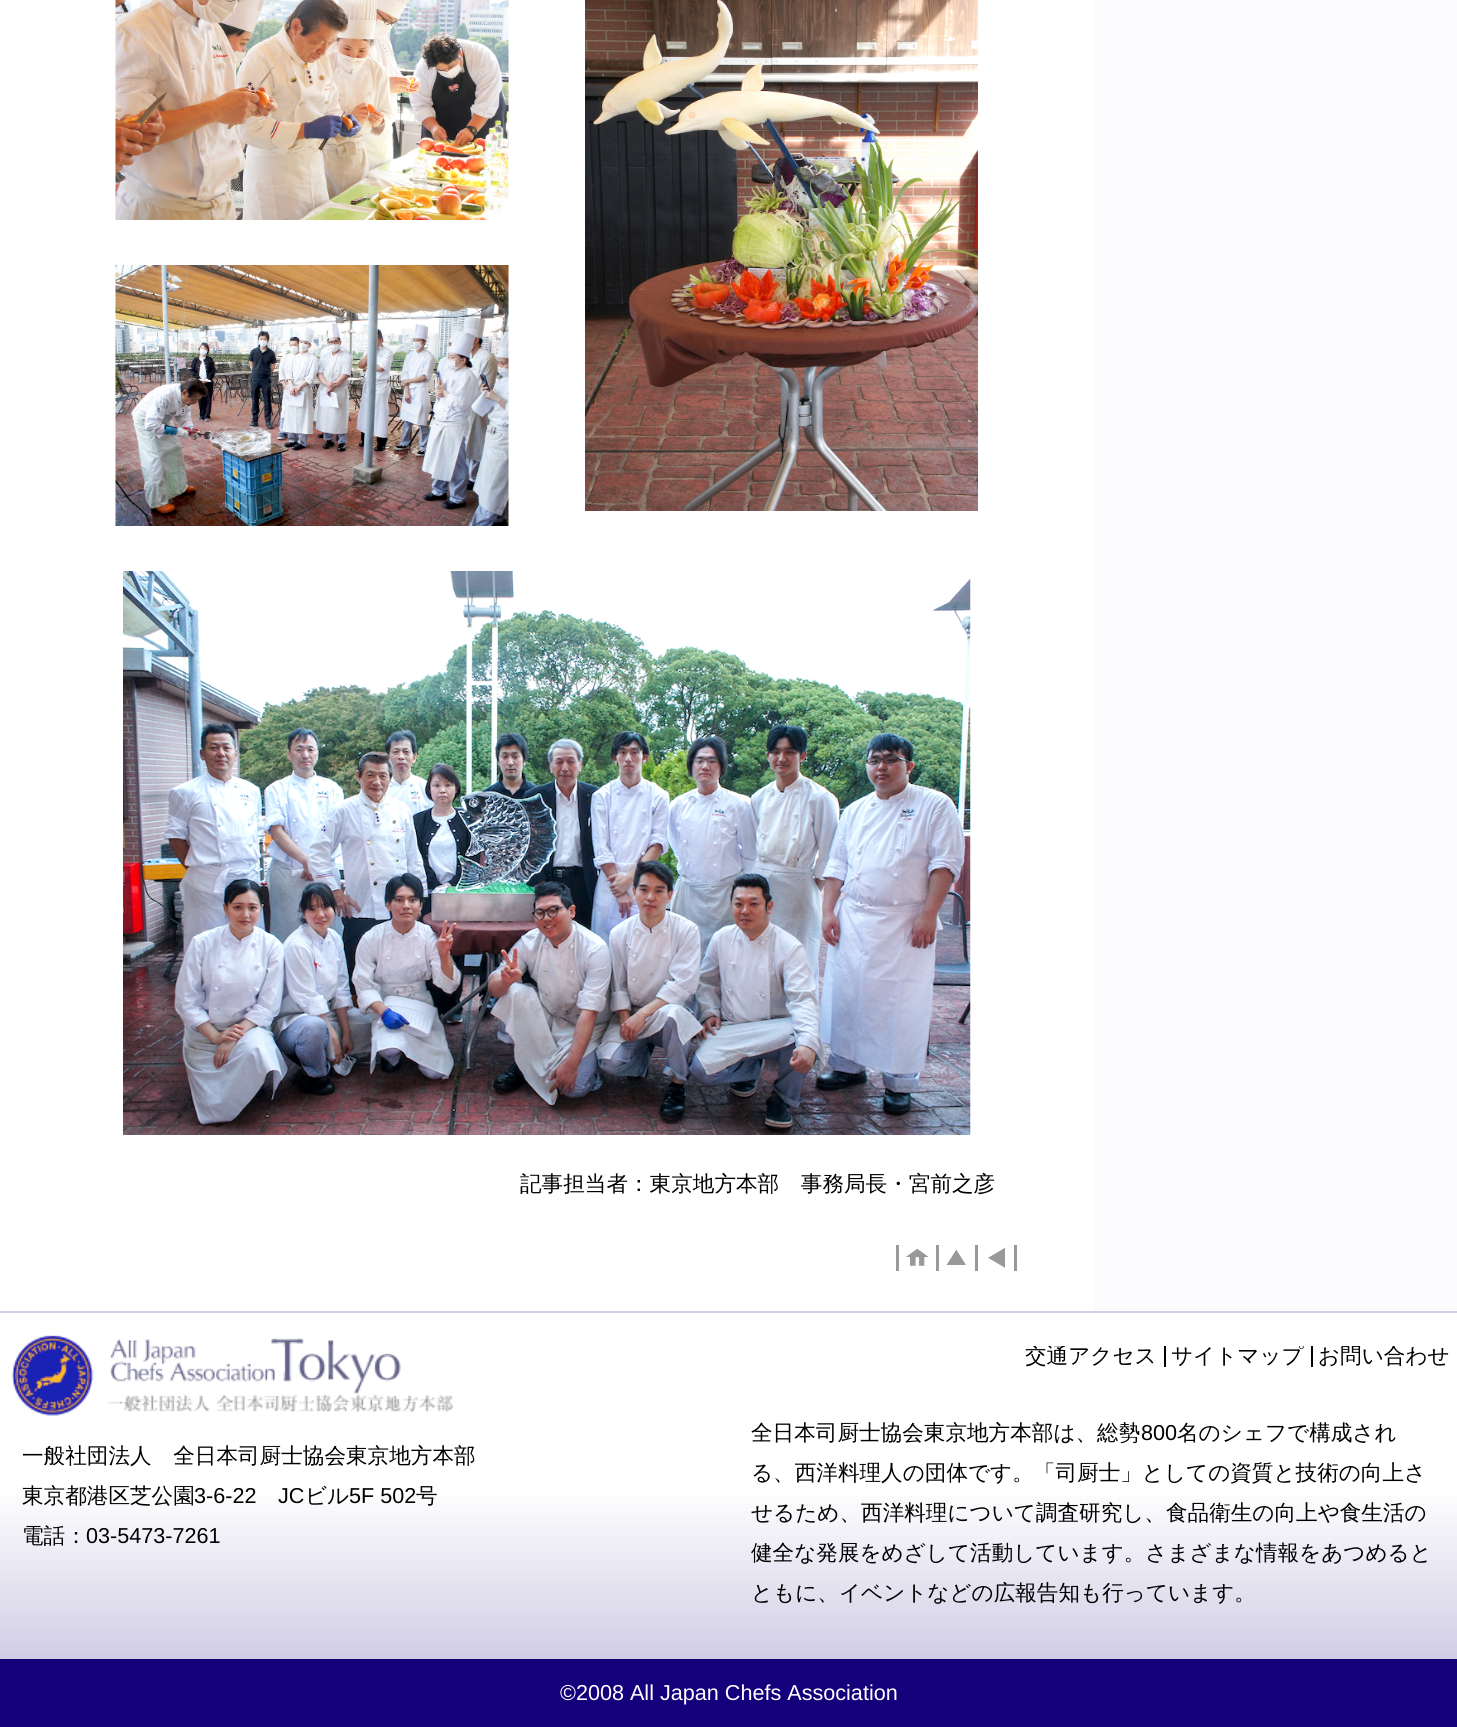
import math
import cairocffi as cairo

surface = cairo.ImageSurface(cairo.FORMAT_RGB24, 1457, 1727)
ctx = cairo.Context(surface)
options = cairo.FontOptions()
options.set_hint_metrics(cairo.HINT_METRICS_OFF)
options.set_hint_style(cairo.HINT_STYLE_NONE)
ctx.set_font_options(options)
ctx.set_miter_limit(4)


def rgb(r, g, b):
    ctx.set_source_rgb(r / 255, g / 255, b / 255)


def face(family, size, italic, bold):
    ctx.select_font_face(family, cairo.FONT_SLANT_ITALIC if italic else cairo.FONT_SLANT_NORMAL, cairo.FONT_WEIGHT_BOLD if bold else cairo.FONT_WEIGHT_NORMAL)
    ctx.set_font_size(size)


def label(x, y, s):
    ctx.move_to(x, y)
    ctx.show_text(s)


def rect(x, y, w, h):
    ctx.rectangle(x, y, w, h)
    ctx.fill()


def image(path, x, y, w, h):
    ctx.save()
    ctx.set_source_surface(cairo.ImageSurface.create_from_png(path), x, y)
    ctx.rectangle(x, y, w, h)
    ctx.fill()
    ctx.restore()


rgb(255, 255, 255)
ctx.paint()
image('image0.png', 115, 0, 394, 220)
image('image1.png', 115, 265, 394, 261)
image('image2.png', 585, 0, 393, 511)
image('image3.png', 123, 571, 848, 564)
face('WenQuanYi Zen Hei Medium', 21.6, 0, 0)
rgb(0, 0, 0)
label(520, 1191, '記事担当者：東京地方本部　事務局長・宮前之彦')
rgb(153, 153, 153)
rect(936, 1245, 3, 26)
rect(896, 1245, 3, 26)
image('image4.png', 906, 1248, 23, 18)
rect(975, 1245, 3, 26)
image('image5.png', 946, 1249, 20, 16)
rect(1014, 1245, 3, 26)
image('image6.png', 988, 1248, 17, 20)
rgb(251, 250, 253)
rect(1094, 0, 363, 1311)
gradient = cairo.LinearGradient(729, 1313, 729, 1659)
gradient.add_color_stop_rgba(0, 1, 1, 1, 1)
gradient.add_color_stop_rgba(0.5, 1, 1, 1, 1)
gradient.add_color_stop_rgba(1, 0.82, 0.804, 0.898, 1)
ctx.set_source(gradient)
rect(0, 1495, 1457, 164)
rgb(211, 205, 230)
rect(0, 1311, 1457, 2)
image('image7.png', 11, 1335, 443, 81)
rgb(0, 0, 0)
label(22, 1463, '一般社団法人　全日本司厨士協会東京地方本部')
label(22, 1503, '東京都港区芝公園')
face('Liberation Sans', 21.6, 0, 0)
label(194, 1503, '3-6-22')
label(278, 1503, 'JC')
face('WenQuanYi Zen Hei Medium', 21.6, 0, 0)
label(305, 1503, 'ビル')
face('Liberation Sans', 21.6, 0, 0)
label(349, 1503, '5F 502')
face('WenQuanYi Zen Hei Medium', 21.6, 0, 0)
label(416, 1503, '号')
label(22, 1543, '電話：')
face('Liberation Sans', 21.6, 0, 0)
label(86, 1543, '03-5473-7261')
rect(1164, 1346, 2, 21)
ctx.save()
ctx.rectangle(731, 1346, 726, 21)
ctx.clip()
face('WenQuanYi Zen Hei Medium', 21.6, 0, 0)
label(1025, 1363, '交通アクセス')
ctx.restore()
rect(1311, 1346, 2, 21)
ctx.save()
ctx.rectangle(731, 1346, 726, 21)
ctx.clip()
face('WenQuanYi Zen Hei Medium', 21.6, 0, 0)
label(1171, 1363, 'サイトマップ')
label(1318, 1363, 'お問い合わせ')
ctx.restore()
face('WenQuanYi Zen Hei Medium', 21.6, 0, 0)
label(751, 1440, '全日本司厨士協会東京地方本部は、総勢')
face('Liberation Sans', 21.6, 0, 0)
label(1141, 1440, '800')
face('WenQuanYi Zen Hei Medium', 21.6, 0, 0)
label(1177, 1440, '名のシェフで構成され')
label(751, 1480, 'る、西洋料理人の団体です。「司厨士」としての資質と技術の向上さ')
label(751, 1520, 'せるため、西洋料理について調査研究し、食品衛生の向上や食生活の')
label(751, 1560, '健全な発展をめざして活動しています。さまざまな情報をあつめると')
label(751, 1600, 'ともに、イベントなどの広報告知も行っています。')
rgb(21, 0, 124)
rect(0, 1659, 1457, 68)
face('Liberation Sans', 21.6, 0, 0)
rgb(255, 255, 255)
label(560, 1700, '©2008 All Japan Chefs Association')
surface.write_to_png('render.png')
